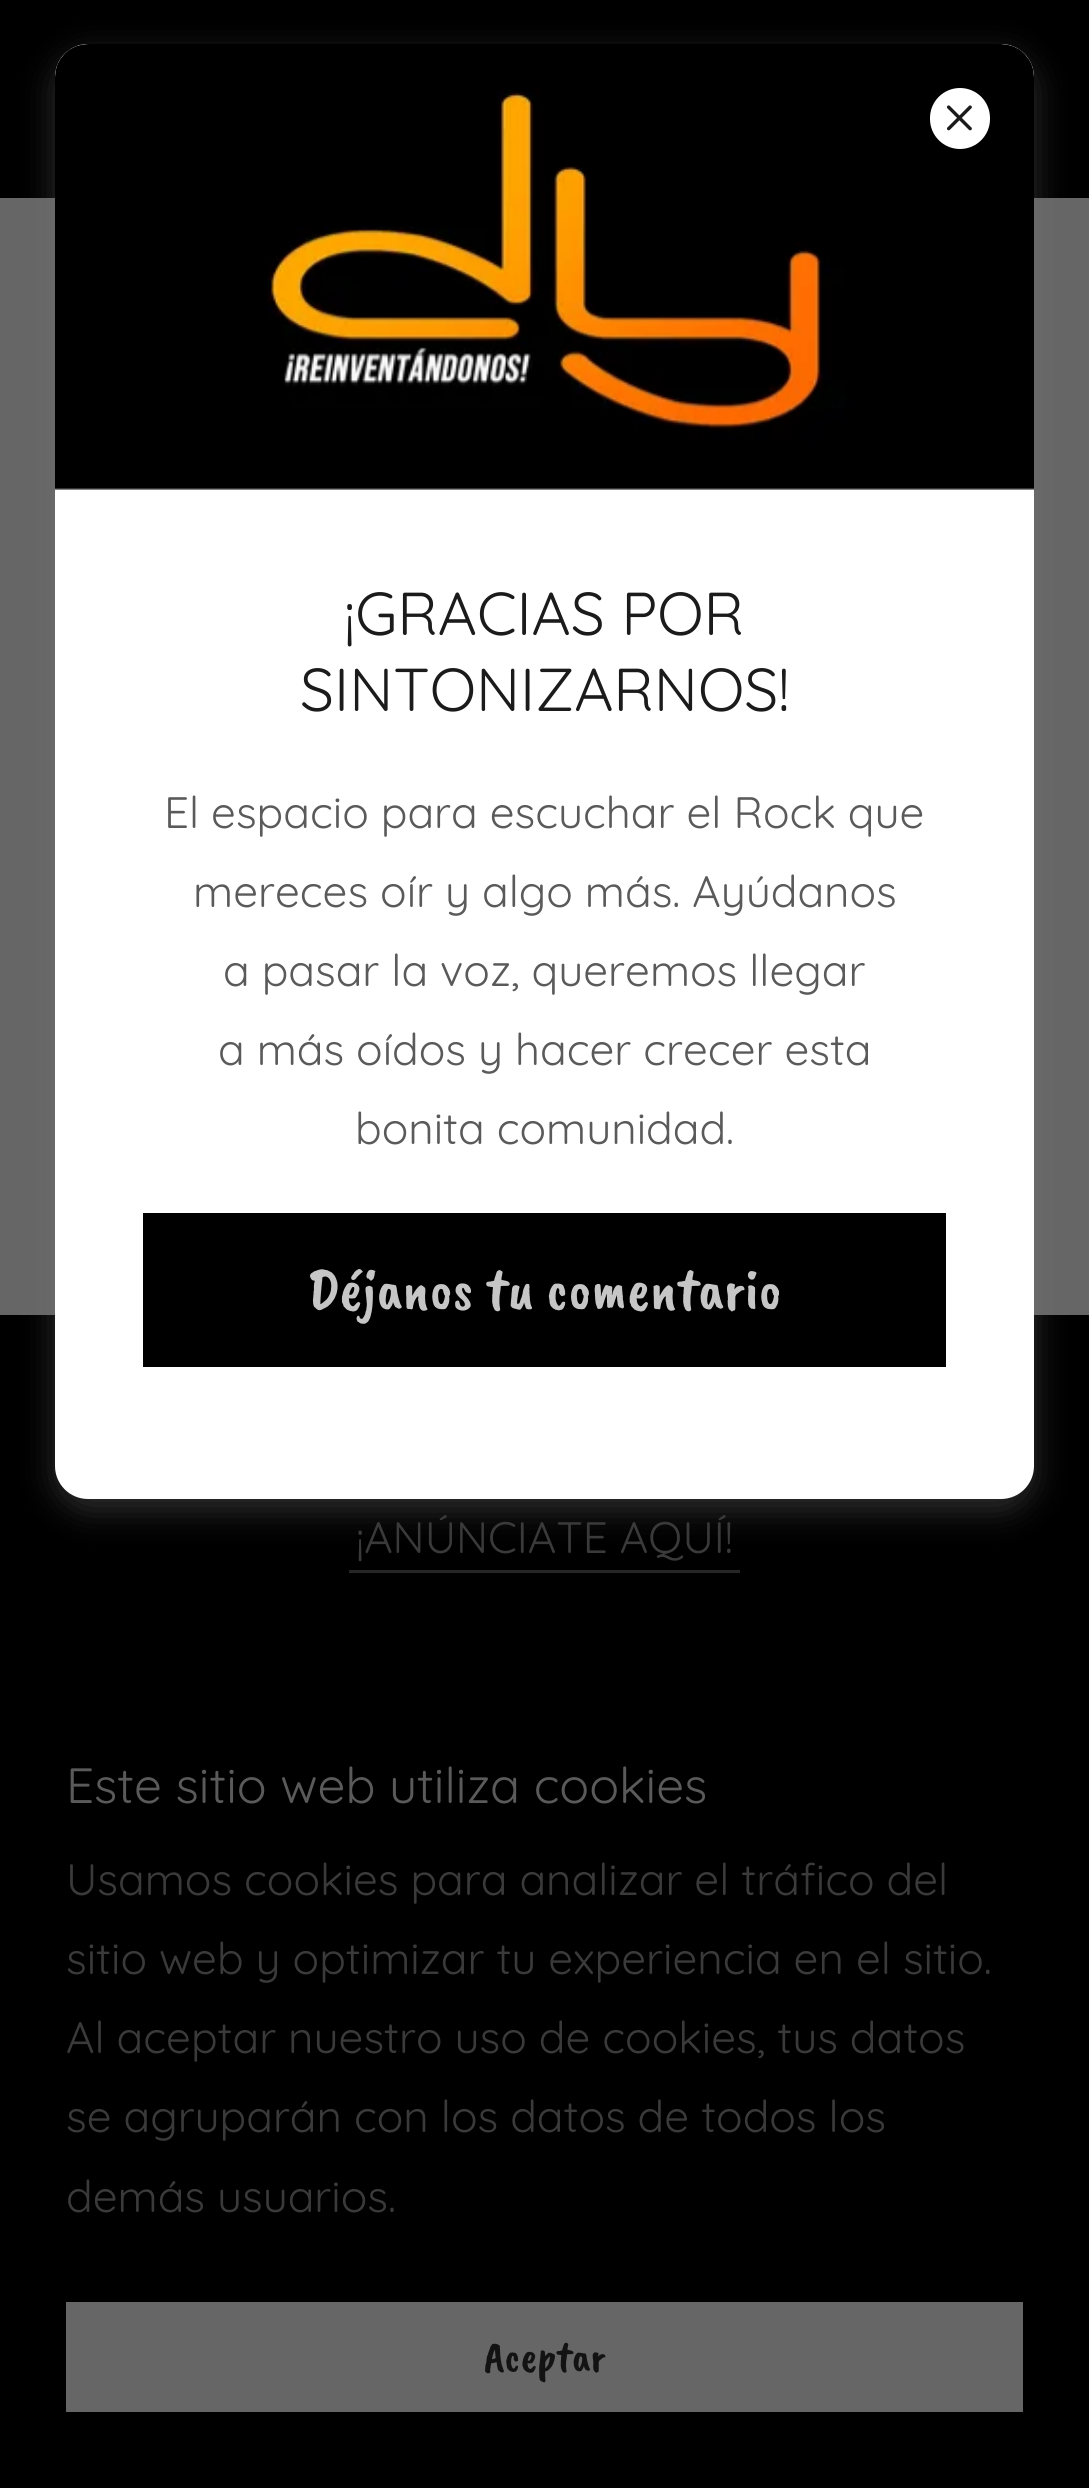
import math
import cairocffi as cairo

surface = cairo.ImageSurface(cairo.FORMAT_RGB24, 1089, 2488)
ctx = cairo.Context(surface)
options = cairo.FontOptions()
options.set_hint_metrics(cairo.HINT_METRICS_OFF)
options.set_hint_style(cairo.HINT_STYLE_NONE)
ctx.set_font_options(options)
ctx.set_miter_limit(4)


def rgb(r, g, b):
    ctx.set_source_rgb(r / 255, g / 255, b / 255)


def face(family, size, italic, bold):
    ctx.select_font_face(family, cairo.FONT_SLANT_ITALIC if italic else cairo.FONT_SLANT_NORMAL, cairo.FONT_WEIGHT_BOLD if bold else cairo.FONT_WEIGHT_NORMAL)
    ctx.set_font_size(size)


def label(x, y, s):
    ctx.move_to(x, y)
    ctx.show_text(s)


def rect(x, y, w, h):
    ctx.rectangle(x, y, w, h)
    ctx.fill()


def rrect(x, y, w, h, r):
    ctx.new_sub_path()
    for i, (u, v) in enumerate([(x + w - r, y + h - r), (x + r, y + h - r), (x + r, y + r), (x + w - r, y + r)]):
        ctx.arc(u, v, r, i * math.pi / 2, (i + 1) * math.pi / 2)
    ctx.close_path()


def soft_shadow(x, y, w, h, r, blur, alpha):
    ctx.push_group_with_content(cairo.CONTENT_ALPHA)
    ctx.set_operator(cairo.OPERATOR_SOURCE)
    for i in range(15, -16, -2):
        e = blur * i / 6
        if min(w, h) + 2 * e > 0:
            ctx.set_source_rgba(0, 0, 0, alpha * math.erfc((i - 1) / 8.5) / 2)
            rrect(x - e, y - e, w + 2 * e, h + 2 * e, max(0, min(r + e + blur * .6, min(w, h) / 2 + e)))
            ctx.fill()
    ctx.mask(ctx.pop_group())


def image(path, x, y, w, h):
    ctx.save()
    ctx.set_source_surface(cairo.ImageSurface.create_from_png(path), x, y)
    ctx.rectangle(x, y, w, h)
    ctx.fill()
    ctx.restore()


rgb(0, 0, 0)
ctx.paint()
rgb(102, 102, 102)
rect(0, 198, 1089, 1117)
rgb(117, 117, 117)
soft_shadow(55, 55, 979, 1455, 33, 16.5, 0.4)
rgb(255, 255, 255)
rrect(55, 44, 979, 1455, 33)
ctx.fill()
image('image1.png', 55, 44, 979, 446)
rrect(930, 88, 60, 61, 30)
ctx.fill()
image('image0.png', 946, 105, 26, 26)
face('Quicksand', 60.5, 0, 0)
rgb(27, 27, 27)
label(344, 635, '¡GRACIAS POR')
label(300, 711, 'SINTONIZARNOS!')
face('Quicksand', 44, 0, 0)
rgb(90, 90, 90)
label(164, 828, 'El espacio para escuchar el Rock que')
label(193, 907, 'mereces oír y algo más. Ayúdanos')
label(223, 986, 'a pasar la voz, queremos llegar')
label(218, 1065, 'a más oídos y hacer crecer esta')
label(355, 1144, 'bonita comunidad.')
rgb(0, 0, 0)
rect(143, 1213, 803, 154)
face('Caveat Brush', 60.5, 0, 0)
rgb(198, 198, 198)
label(307, 1309, 'Déjanos tu comentario')
rgb(38, 38, 38)
rect(349, 1570, 391, 3)
face('Quicksand', 44, 0, 0)
rgb(58, 58, 58)
label(356, 1553, '¡ANÚNCIATE AQUÍ!')
face('Quicksand', 49.5, 0, 0)
rgb(90, 90, 90)
label(66, 1803, 'Este sitio web utiliza cookies')
face('Quicksand', 44, 0, 0)
rgb(58, 58, 58)
label(66, 1895, 'Usamos cookies para analizar el tráfico del')
label(66, 1974, 'sitio web y optimizar tu experiencia en el sitio.')
label(66, 2053, 'Al aceptar nuestro uso de cookies, tus datos')
label(66, 2132, 'se agruparán con los datos de todos los')
label(66, 2212, 'demás usuarios.')
rgb(102, 102, 102)
rect(66, 2302, 957, 110)
face('Caveat Brush', 44, 0, 0)
rgb(19, 19, 19)
label(484, 2371, 'Aceptar')
surface.write_to_png('render.png')
